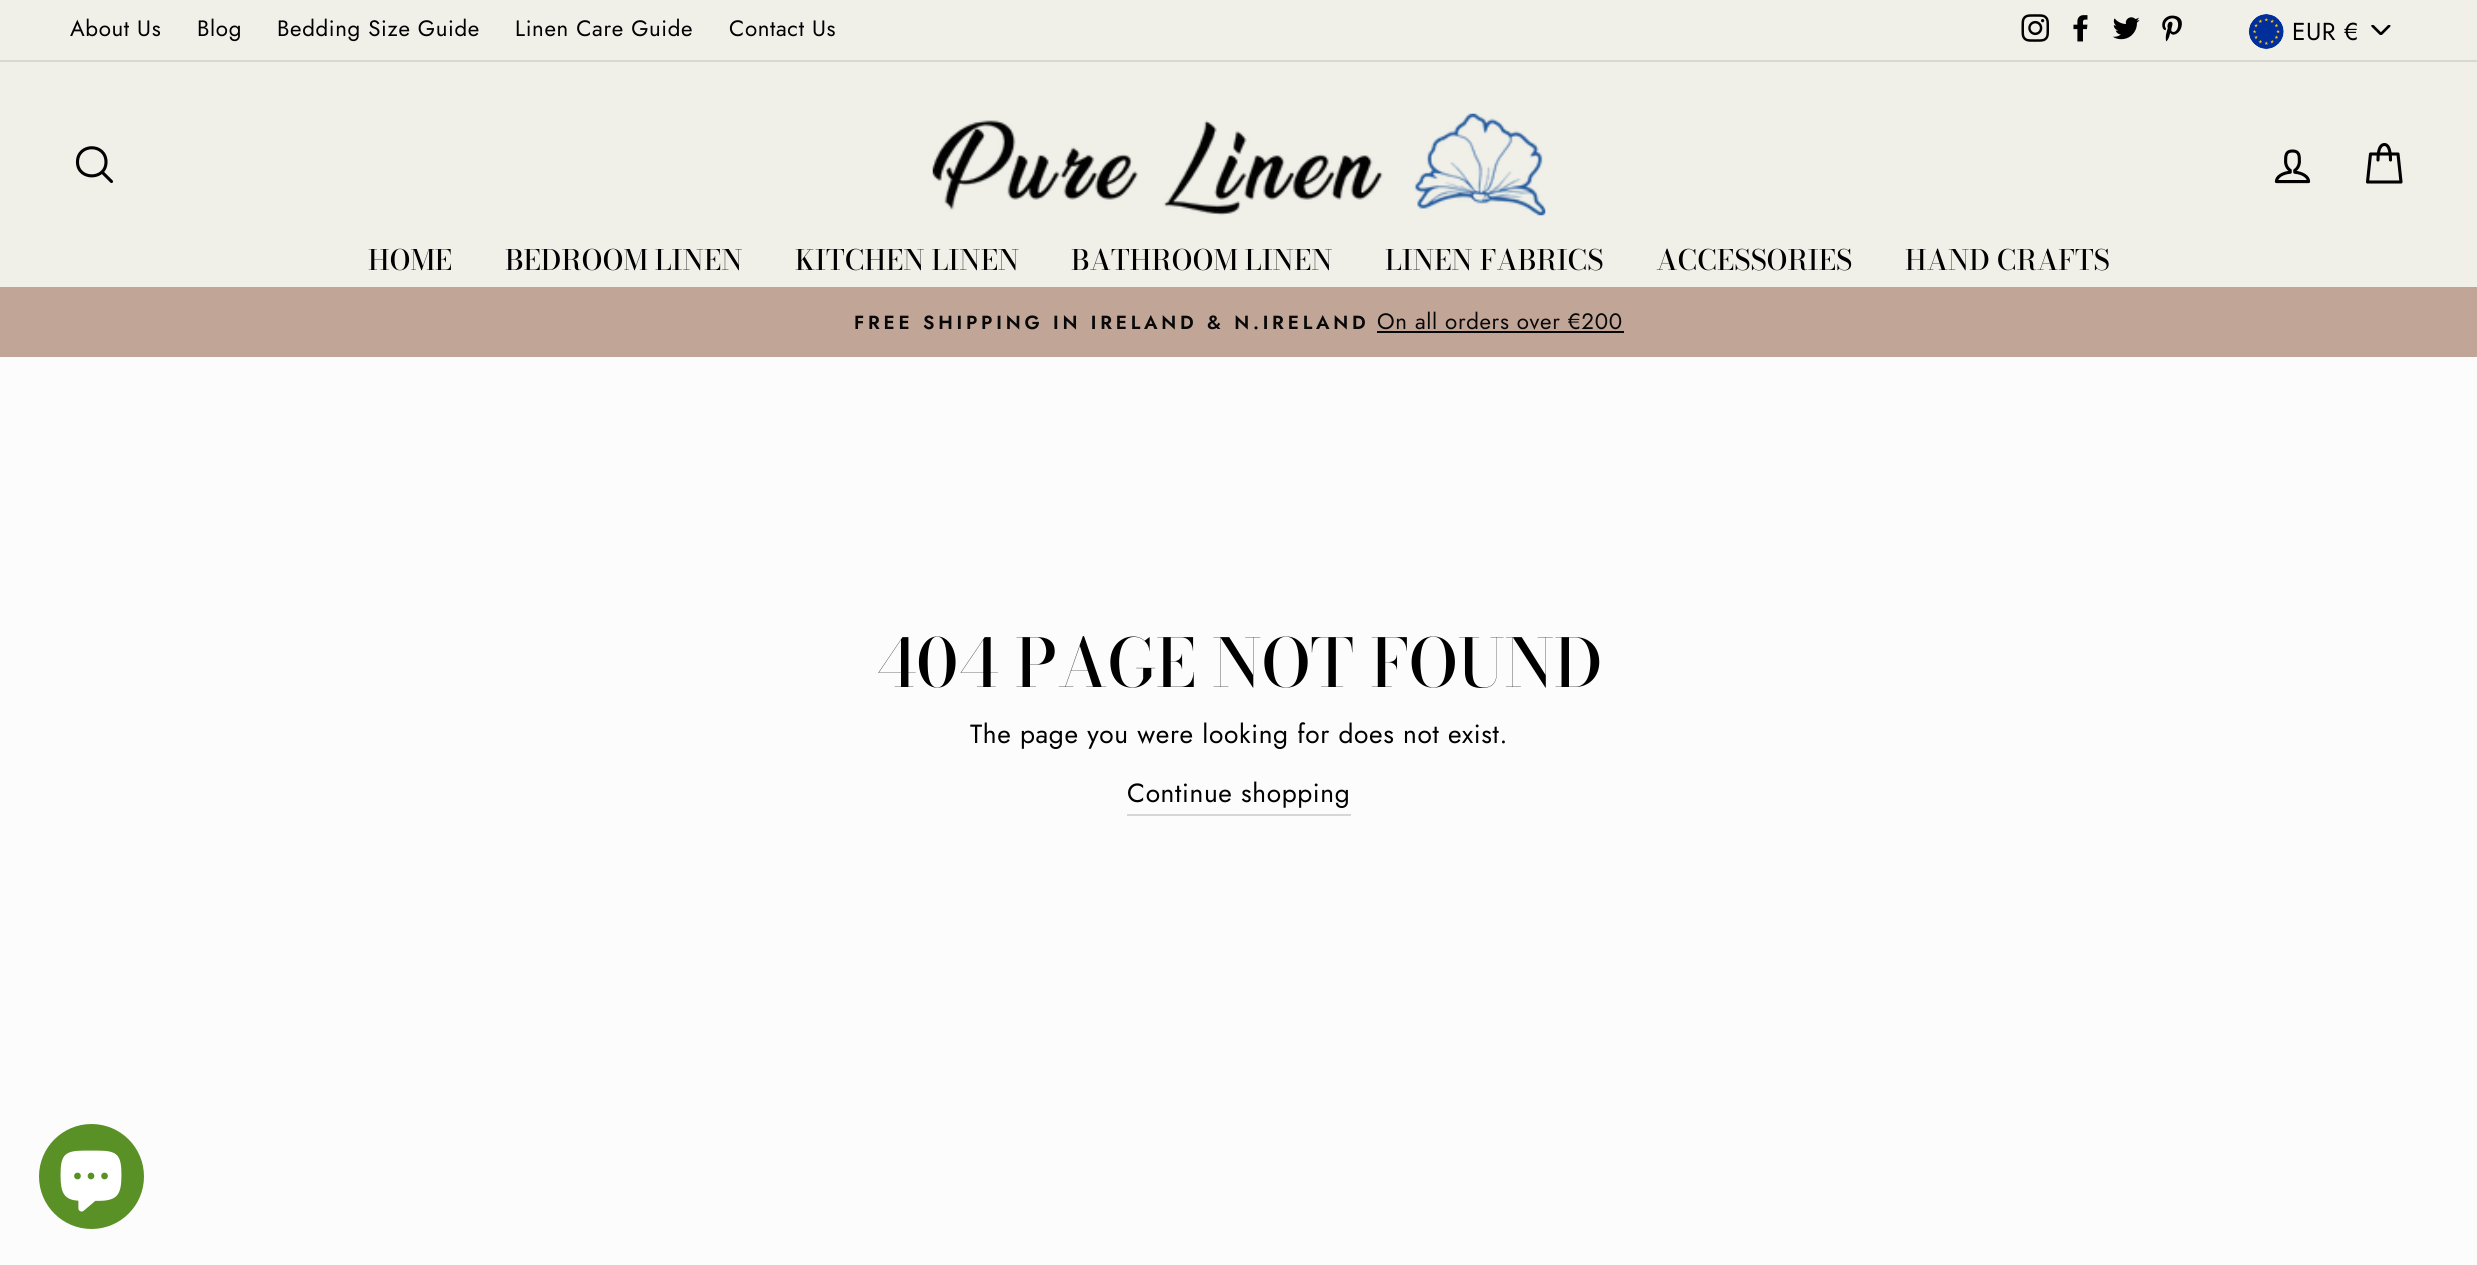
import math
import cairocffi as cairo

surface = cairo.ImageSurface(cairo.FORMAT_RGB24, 2477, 1265)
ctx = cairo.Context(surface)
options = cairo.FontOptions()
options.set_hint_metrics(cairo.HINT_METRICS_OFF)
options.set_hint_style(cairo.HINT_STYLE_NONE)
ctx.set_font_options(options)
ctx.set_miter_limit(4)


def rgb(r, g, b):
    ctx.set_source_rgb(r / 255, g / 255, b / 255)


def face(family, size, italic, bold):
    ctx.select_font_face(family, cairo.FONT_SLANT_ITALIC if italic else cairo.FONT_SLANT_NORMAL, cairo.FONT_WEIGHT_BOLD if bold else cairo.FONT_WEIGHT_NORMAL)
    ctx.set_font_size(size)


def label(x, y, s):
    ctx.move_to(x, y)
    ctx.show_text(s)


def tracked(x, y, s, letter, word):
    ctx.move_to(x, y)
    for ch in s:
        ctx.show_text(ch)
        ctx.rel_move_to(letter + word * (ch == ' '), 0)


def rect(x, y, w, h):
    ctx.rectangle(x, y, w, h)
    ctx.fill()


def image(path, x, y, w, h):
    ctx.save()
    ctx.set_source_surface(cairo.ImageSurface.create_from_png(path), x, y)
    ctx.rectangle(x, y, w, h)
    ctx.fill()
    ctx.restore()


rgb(252, 252, 252)
ctx.paint()
rgb(240, 240, 233)
rect(0, 0, 2477, 60)
face('Jost', 22.25, 0, 0)
rgb(0, 0, 0)
tracked(70, 36, 'About Us', 0.65, 0)
tracked(197, 36, 'Blog', 0.65, 0)
tracked(277, 36, 'Bedding Size Guide', 0.65, 0)
tracked(515, 36, 'Linen Care Guide', 0.65, 0)
tracked(729, 36, 'Contact Us', 0.65, 0)
image('image0.png', 2021, 14, 28, 28)
image('image1.png', 2073, 15, 15, 27)
image('image2.png', 2112, 17, 28, 23)
image('image3.png', 2162, 15, 20, 27)
image('image4.png', 2371, 25, 20, 10)
image('image5.png', 2248, 14, 36, 35)
face('Jost', 24.5, 0, 0)
tracked(2292, 40, 'EUR €', 0.5, 0)
rgb(240, 240, 233)
rect(0, 62, 2477, 225)
rgb(216, 216, 210)
rect(0, 60, 2477, 2)
ctx.new_path()
ctx.move_to(106, 162)
ctx.curve_to(106, 180.5, 77.5, 180.5, 77.5, 162)
ctx.curve_to(77.5, 143, 106, 143, 106, 162)
ctx.close_path()
ctx.move_to(111.5, 181.5)
ctx.line_to(102, 172)
rgb(0, 0, 0)
ctx.set_line_width(3.1)
ctx.set_line_cap(cairo.LINE_CAP_ROUND)
ctx.set_line_join(cairo.LINE_JOIN_ROUND)
ctx.stroke()
image('image6.png', 932, 113, 614, 103)
image('image7.png', 2274, 149, 37, 35)
ctx.new_path()
ctx.move_to(2378, 160)
ctx.curve_to(2378, 148, 2381, 144.5, 2384.5, 144.5)
ctx.curve_to(2387.5, 144.5, 2390.5, 148, 2390.5, 160)
ctx.move_to(2370.5, 154)
ctx.line_to(2398, 154)
ctx.line_to(2401, 182)
ctx.line_to(2367.5, 182)
ctx.close_path()
ctx.stroke()
face('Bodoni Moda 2 Medium', 28, 0, 0)
label(368, 270, 'HOME')
label(505, 270, 'BEDROOM LINEN')
label(795, 270, 'KITCHEN LINEN')
label(1071, 270, 'BATHROOM LINEN')
label(1385, 270, 'LINEN FABRICS')
label(1656, 270, 'ACCESSORIES')
label(1905, 270, 'HAND CRAFTS')
rgb(193, 166, 151)
rect(0, 287, 2477, 70)
face('Jost SemiBold', 19, 0, 0)
rgb(8, 8, 8)
tracked(854, 329, 'FREE SHIPPING IN IRELAND & N.IRELAND', 3.8, 0)
face('Jost', 22.25, 0, 0)
tracked(1377, 329, 'On all orders over €200', 0.65, 0)
rect(1377, 331, 247, 2)
face('Bodoni Moda Medium', 66.5, 0, 0)
rgb(0, 0, 0)
label(876, 687, '404 PAGE NOT FOUND')
face('Jost', 26.25, 0, 0)
tracked(970, 743, 'The page you were looking for does not exist.', 0.65, 0)
rgb(214, 214, 214)
rect(1127, 814, 224, 2)
rgb(0, 0, 0)
tracked(1127, 802, 'Continue shopping', 0.65, 0)
rgb(90, 145, 39)
ctx.new_path()
ctx.arc(91.5, 1176.5, 52.5, 0, 2 * math.pi)
ctx.fill()
image('image8.png', 60, 1150, 62, 62)
surface.write_to_png('render.png')
